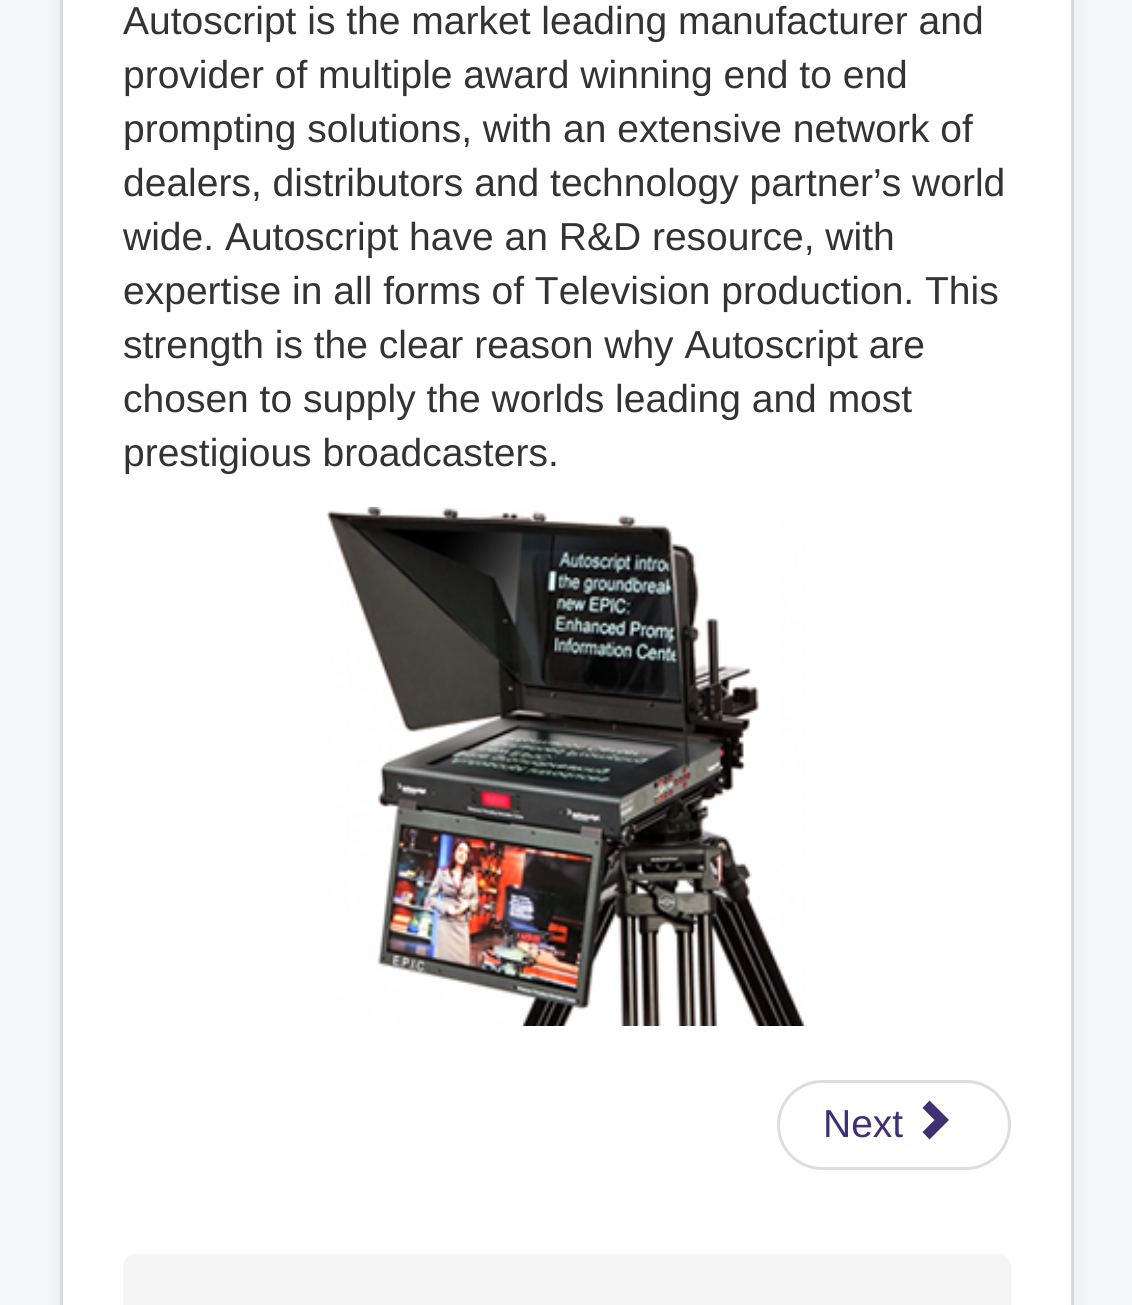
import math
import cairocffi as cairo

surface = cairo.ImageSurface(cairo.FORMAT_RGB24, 1132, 1305)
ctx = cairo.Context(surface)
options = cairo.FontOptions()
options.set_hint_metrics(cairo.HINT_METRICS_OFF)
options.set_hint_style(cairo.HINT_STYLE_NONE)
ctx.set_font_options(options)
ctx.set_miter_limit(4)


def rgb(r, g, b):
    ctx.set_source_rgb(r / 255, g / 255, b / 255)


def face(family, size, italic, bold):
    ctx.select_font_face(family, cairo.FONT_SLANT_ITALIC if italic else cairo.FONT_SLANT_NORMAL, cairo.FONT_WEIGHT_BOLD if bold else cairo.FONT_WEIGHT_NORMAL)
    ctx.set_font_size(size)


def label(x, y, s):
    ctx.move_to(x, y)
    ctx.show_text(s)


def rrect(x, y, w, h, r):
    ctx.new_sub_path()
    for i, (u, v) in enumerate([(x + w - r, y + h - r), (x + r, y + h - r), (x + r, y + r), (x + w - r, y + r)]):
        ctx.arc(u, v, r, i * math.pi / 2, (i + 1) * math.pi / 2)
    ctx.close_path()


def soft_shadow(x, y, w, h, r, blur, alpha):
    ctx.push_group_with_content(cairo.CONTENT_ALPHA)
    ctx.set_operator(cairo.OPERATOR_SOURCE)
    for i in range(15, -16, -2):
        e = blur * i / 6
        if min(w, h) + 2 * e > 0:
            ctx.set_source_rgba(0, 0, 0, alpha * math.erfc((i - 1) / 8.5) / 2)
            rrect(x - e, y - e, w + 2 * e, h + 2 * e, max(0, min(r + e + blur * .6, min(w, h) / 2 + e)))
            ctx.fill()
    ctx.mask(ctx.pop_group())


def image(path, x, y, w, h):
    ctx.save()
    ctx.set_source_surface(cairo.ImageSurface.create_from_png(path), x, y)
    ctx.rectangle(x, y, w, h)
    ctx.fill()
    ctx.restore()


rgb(244, 246, 247)
ctx.paint()
rgb(0, 0, 0)
soft_shadow(60, -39, 1014, 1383, 12, 9, 0.05)
rgb(255, 255, 255)
ctx.rectangle(61.5, -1.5, 1011, 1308)
ctx.fill_preserve()
rgb(217, 217, 217)
ctx.set_line_width(3)
ctx.stroke()
face('Liberation Sans', 39, 0, 0)
rgb(51, 51, 51)
label(123, 34, 'Autoscript is the market leading manufacturer and')
label(123, 88, 'provider of multiple award winning end to end')
label(123, 142, 'prompting solutions, with an extensive network of')
label(123, 196, 'dealers, distributors and technology partner’s world')
label(123, 250, 'wide. Autoscript have an R&D resource, with')
label(123, 304, 'expertise in all forms of Television production. This')
label(123, 358, 'strength is the clear reason why Autoscript are')
label(123, 412, 'chosen to supply the worlds leading and most')
label(123, 466, 'prestigious broadcasters.')
image('image0.png', 326, 507, 480, 519)
rrect(778.5, 1081.5, 231, 87, 43.5)
rgb(221, 221, 221)
ctx.stroke()
rgb(65, 47, 116)
label(823, 1137, 'Next')
ctx.new_path()
ctx.move_to(929.5, 1100.5)
ctx.line_to(949, 1120)
ctx.line_to(929.5, 1139.5)
ctx.line_to(922.5, 1132)
ctx.line_to(934.5, 1120)
ctx.line_to(922.5, 1108)
ctx.close_path()
ctx.fill()
rgb(245, 245, 245)
rrect(123, 1254, 888, 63, 12)
ctx.fill()
surface.write_to_png('render.png')
